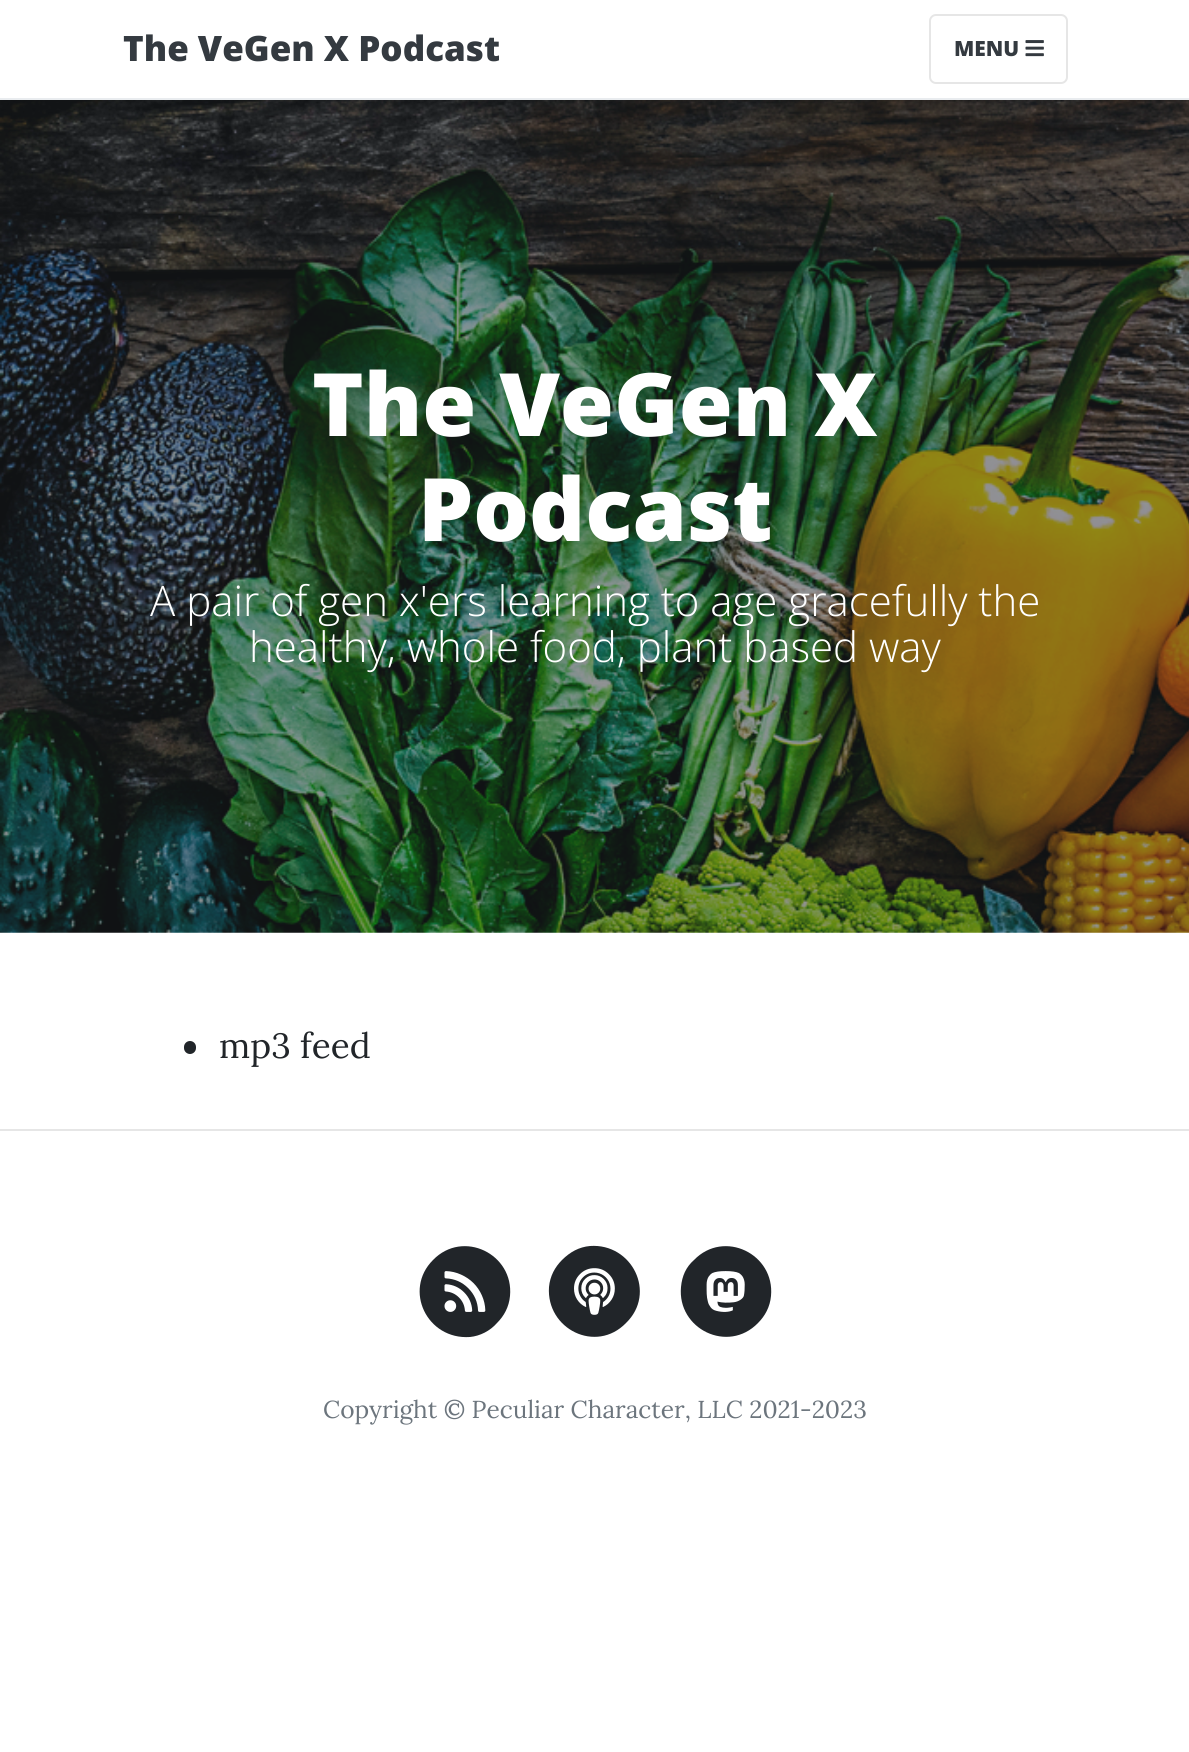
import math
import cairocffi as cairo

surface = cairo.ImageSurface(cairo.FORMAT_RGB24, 1189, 1752)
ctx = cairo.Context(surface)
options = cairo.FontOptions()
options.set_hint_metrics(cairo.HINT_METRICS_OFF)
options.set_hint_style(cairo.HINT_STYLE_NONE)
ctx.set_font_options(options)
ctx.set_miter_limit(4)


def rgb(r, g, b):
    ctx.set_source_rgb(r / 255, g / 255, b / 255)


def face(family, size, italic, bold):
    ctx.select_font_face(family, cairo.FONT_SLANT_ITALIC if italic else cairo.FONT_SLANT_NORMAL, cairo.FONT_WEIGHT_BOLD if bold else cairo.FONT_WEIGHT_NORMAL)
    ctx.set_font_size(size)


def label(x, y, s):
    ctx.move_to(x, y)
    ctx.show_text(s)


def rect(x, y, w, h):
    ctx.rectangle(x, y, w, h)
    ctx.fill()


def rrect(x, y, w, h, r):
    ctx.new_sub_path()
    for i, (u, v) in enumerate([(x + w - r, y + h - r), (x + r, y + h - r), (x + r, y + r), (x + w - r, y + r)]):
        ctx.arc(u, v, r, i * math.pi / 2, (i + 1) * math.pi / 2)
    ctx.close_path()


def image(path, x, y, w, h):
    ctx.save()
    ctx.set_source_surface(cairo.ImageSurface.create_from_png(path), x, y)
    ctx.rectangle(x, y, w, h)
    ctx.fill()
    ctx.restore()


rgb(255, 255, 255)
ctx.paint()
rgb(233, 236, 239)
rect(0, 98, 1189, 2)
face('Open Sans ExtraBold', 35, 0, 0)
rgb(52, 58, 64)
label(123, 61, 'The VeGen X Podcast')
rrect(930, 15, 137, 68, 6)
rgb(230, 230, 230)
ctx.stroke()
face('Open Sans ExtraBold', 21, 0, 0)
rgb(52, 58, 64)
label(954, 56, 'MENU')
image('image0.png', 1025, 40, 19, 17)
image('image1.png', 0, 100, 1189, 833)
face('Open Sans ExtraBold', 87.5, 0, 0)
rgb(255, 255, 255)
label(312, 436, 'The VeGen X')
label(418, 541, 'Podcast')
face('Open Sans Light', 42, 0, 0)
label(150, 616, 'A pair of gen x\'ers learning to age gracefully the')
label(249, 662, 'healthy, whole food, plant based way')
rgb(33, 37, 41)
rrect(184, 1041, 12, 13, 6)
ctx.fill()
face('Lora', 35, 0, 0)
label(219, 1058, 'mp3 feed')
rgb(230, 230, 230)
rect(0, 1129, 1189, 2)
rgb(33, 37, 41)
ctx.new_path()
ctx.move_to(433, 1260)
ctx.curve_to(463, 1229, 514, 1254, 510, 1296)
ctx.curve_to(509, 1307, 504, 1316, 497, 1323)
ctx.curve_to(490, 1331, 480, 1336, 470, 1337)
ctx.curve_to(427, 1340, 403, 1290, 433, 1260)
ctx.close_path()
ctx.fill()
image('image2.png', 444, 1271, 42, 41)
ctx.new_path()
ctx.move_to(562, 1260)
ctx.curve_to(570, 1252, 579, 1247, 590, 1246)
ctx.curve_to(632, 1243, 657, 1293, 626, 1323)
ctx.curve_to(596, 1354, 546, 1329, 549, 1287)
ctx.curve_to(550, 1276, 555, 1267, 562, 1260)
ctx.close_path()
ctx.fill()
image('image3.png', 574, 1268, 41, 47)
ctx.new_path()
ctx.move_to(694, 1260)
ctx.curve_to(724, 1229, 775, 1254, 771, 1296)
ctx.curve_to(770, 1307, 765, 1316, 758, 1323)
ctx.curve_to(728, 1354, 677, 1329, 681, 1287)
ctx.curve_to(682, 1276, 686, 1267, 694, 1260)
ctx.close_path()
ctx.fill()
image('image4.png', 706, 1271, 39, 41)
face('Lora', 24.5, 0, 0)
rgb(108, 117, 125)
label(323, 1418, 'Copyright © Peculiar Character, LLC 2021-2023')
surface.write_to_png('render.png')
